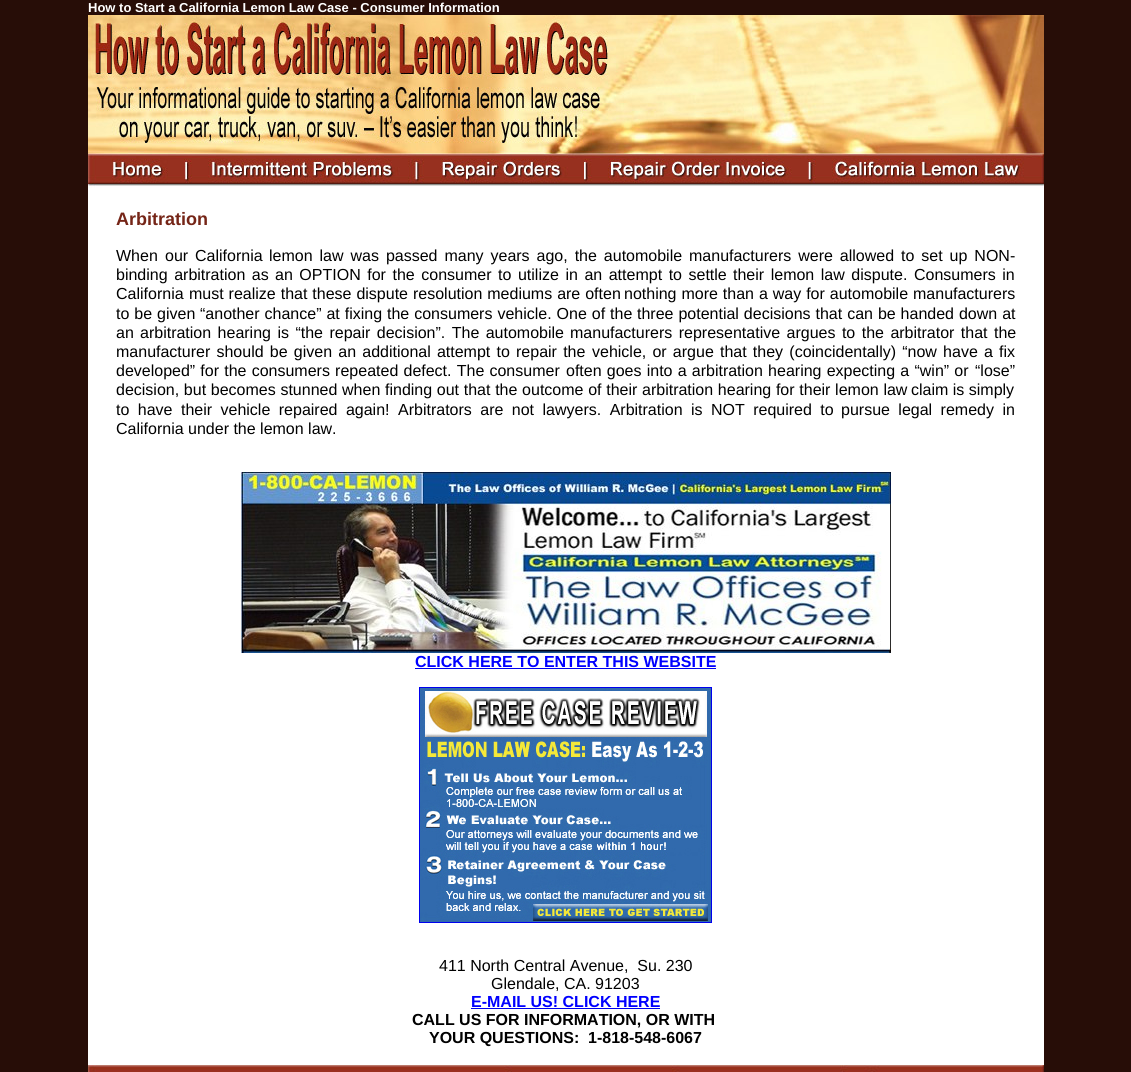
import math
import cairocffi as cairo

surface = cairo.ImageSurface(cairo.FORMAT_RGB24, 1131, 1072)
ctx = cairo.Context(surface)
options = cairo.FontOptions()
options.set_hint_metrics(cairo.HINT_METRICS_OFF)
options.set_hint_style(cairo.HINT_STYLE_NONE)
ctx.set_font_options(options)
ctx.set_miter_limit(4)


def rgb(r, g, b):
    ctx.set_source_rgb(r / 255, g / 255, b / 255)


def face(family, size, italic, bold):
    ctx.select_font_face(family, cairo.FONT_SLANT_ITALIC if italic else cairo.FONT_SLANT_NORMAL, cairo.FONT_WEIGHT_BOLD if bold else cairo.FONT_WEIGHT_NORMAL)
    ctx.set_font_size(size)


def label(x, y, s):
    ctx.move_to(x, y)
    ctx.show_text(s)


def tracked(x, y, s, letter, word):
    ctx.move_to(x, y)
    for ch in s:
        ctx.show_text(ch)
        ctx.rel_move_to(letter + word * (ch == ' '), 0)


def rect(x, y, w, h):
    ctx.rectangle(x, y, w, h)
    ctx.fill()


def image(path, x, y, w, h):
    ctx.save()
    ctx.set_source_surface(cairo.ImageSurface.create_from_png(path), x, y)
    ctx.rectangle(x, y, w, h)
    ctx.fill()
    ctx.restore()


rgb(39, 13, 7)
ctx.paint()
face('Liberation Sans', 13, 0, 1)
rgb(255, 255, 255)
label(88, 12, 'How to Start a California Lemon Law Case - Consumer Information')
image('image0.png', 88, 15, 956, 173)
rect(88, 188, 956, 877)
face('Liberation Sans', 18, 0, 1)
rgb(117, 37, 23)
label(116, 225, 'Arbitration')
face('Liberation Sans', 16, 0, 0)
rgb(0, 0, 0)
label(116, 261, 'When')
label(165, 261, 'our')
label(195, 261, 'California')
tracked(269, 261, 'lemon law was passed many years ago, the automobile', 0, 2.5)
tracked(689, 261, 'manufacturers were allowed to set up NON-', 0, 2.5)
tracked(116, 280, 'binding arbitration as', 0, 2.1)
tracked(275, 280, 'an OPTION for the consumer to utilize in an attempt to settle', 0, 2.1)
tracked(733, 280, 'their lemon law dispute. Consumers in', 0, 2.1)
label(116, 299, 'California')
tracked(189, 299, 'must realize that these dispute resolution mediums are often', 0, 0.5)
tracked(624, 299, 'nothing more than a way for automobile manufacturers', 0, 0.5)
tracked(116, 319, 'to be given', 0, 0.5)
tracked(200, 319, '“another chance” at fixing the consumers vehicle. One of the', 0, 0.5)
tracked(637, 319, 'three potential decisions that can be handed down at', 0, 0.5)
label(116, 338, 'an')
tracked(140, 338, 'arbitration hearing is “the repair decision”. The automobile', 0, 2)
tracked(570, 338, 'manufacturers representative argues to the arbitrator that the', 0, 2)
tracked(116, 357, 'manufacturer should be given an additional attempt to repair the', 0, 1.75)
tracked(592, 357, 'vehicle, or argue that they (coincidentally) “now have a fix', 0, 1.75)
tracked(116, 376, 'developed” for the consumers repeated defect. The consumer', 0, 0.75)
tracked(566, 376, 'often goes into a arbitration hearing expecting a “win” or', 0, 0.75)
label(975, 376, '“lose”')
tracked(116, 395, 'decision, but becomes stunned when finding out that the outcome of their arbitration hearing for their lemon law', 0, 0.25)
label(911, 395, 'claim is simply')
tracked(116, 415, 'to have their vehicle repaired again!', 0, 4)
tracked(398, 415, 'Arbitrators are not lawyers. Arbitration is NOT required to', 0, 4)
tracked(841, 415, 'pursue legal remedy in', 0, 4)
label(116, 434, 'California under the lemon law.')
image('image1.png', 241, 472, 650, 181)
face('Liberation Sans', 16, 0, 1)
rgb(0, 0, 255)
label(415, 667, 'CLICK HERE TO ENTER THIS WEBSITE')
rgb(0, 0, 238)
rect(415, 668, 301, 1)
ctx.rectangle(419.5, 687.5, 292, 235)
ctx.set_line_width(1)
ctx.stroke()
image('image2.png', 420, 688, 291, 234)
face('Liberation Sans', 16, 0, 0)
rgb(0, 0, 0)
label(439, 971, '411 North Central Avenue,  Su. 230')
label(491, 989, 'Glendale, CA. 91203')
face('Liberation Sans', 16, 0, 1)
rgb(0, 0, 255)
label(471, 1007, 'E-MAIL US! CLICK HERE')
rgb(0, 0, 238)
rect(471, 1008, 189, 1)
rgb(0, 0, 0)
label(412, 1025, 'CALL US FOR INFORMATION, OR WITH')
label(429, 1043, 'YOUR QUESTIONS:')
label(588, 1043, '1-818-548-6067')
image('image3.png', 88, 1065, 956, 7)
surface.write_to_png('render.png')
